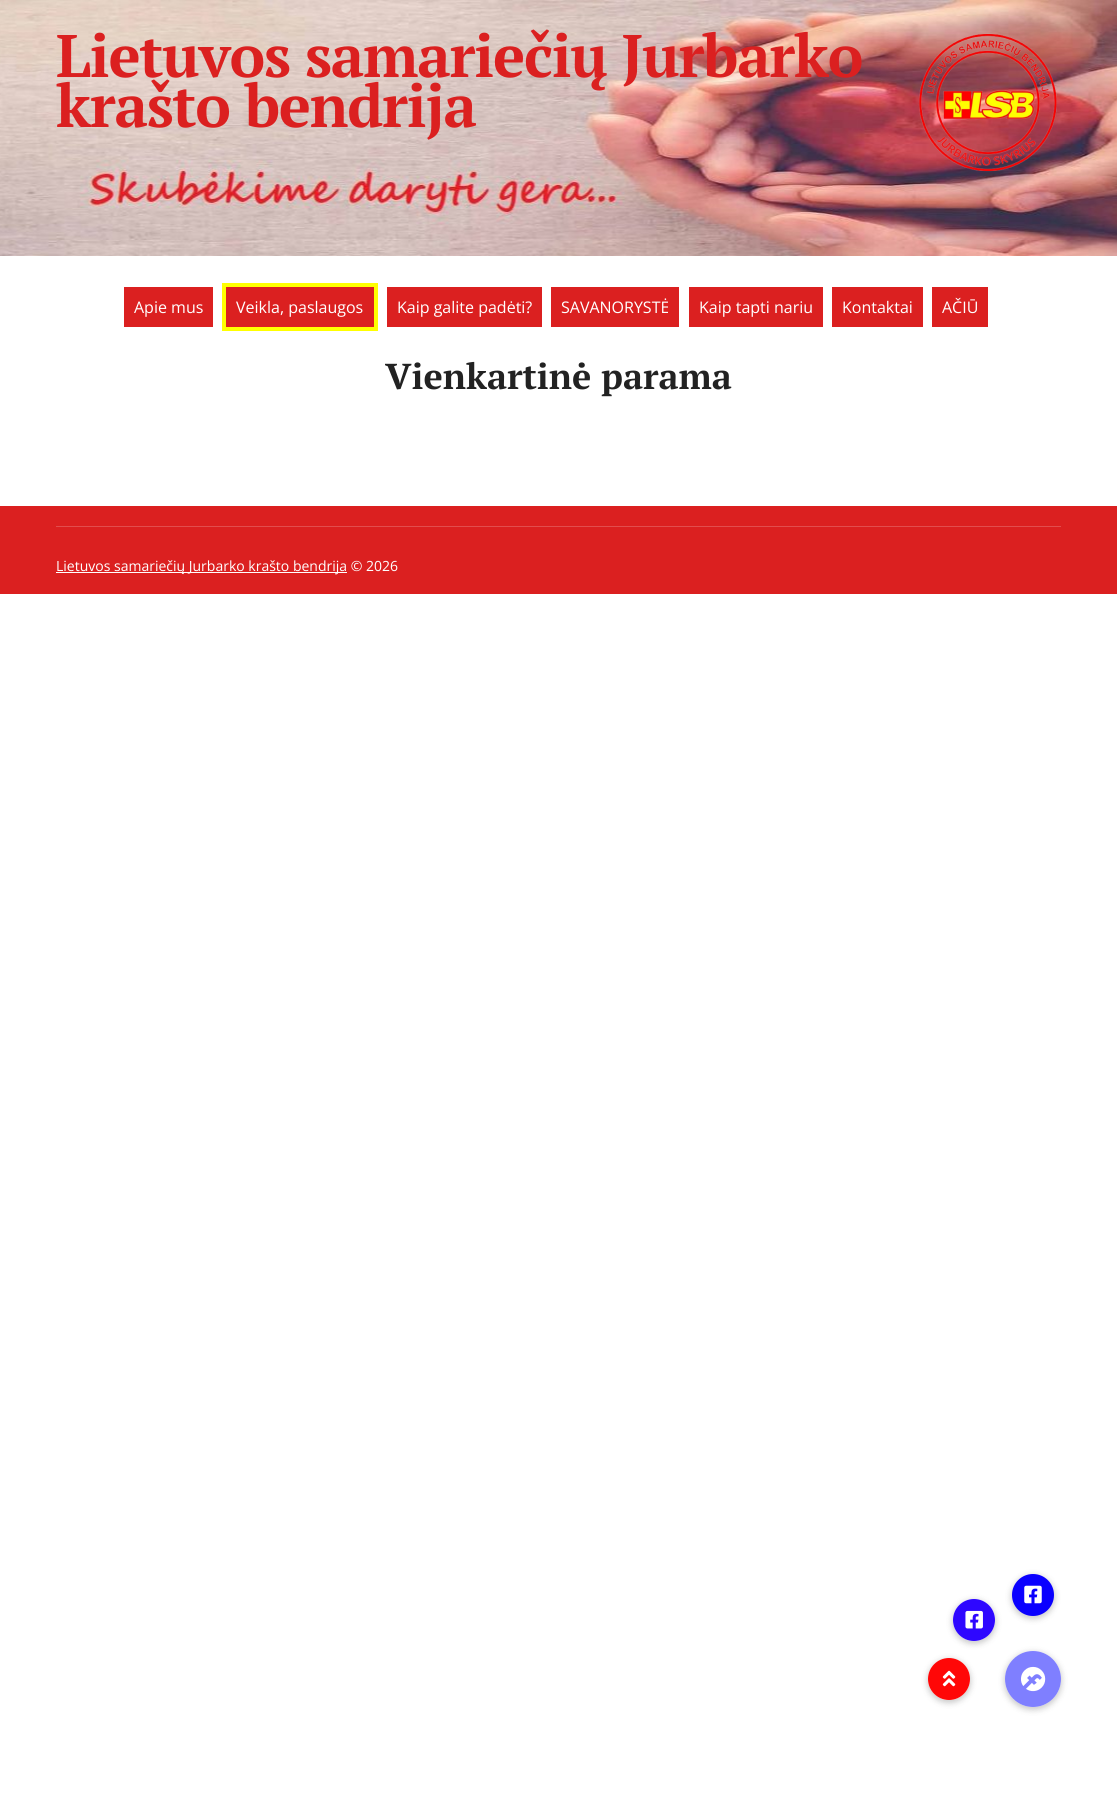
import math
import cairocffi as cairo

surface = cairo.ImageSurface(cairo.FORMAT_RGB24, 1117, 1797)
ctx = cairo.Context(surface)
options = cairo.FontOptions()
options.set_hint_metrics(cairo.HINT_METRICS_OFF)
options.set_hint_style(cairo.HINT_STYLE_NONE)
ctx.set_font_options(options)
ctx.set_miter_limit(4)


def rgb(r, g, b):
    ctx.set_source_rgb(r / 255, g / 255, b / 255)


def face(family, size, italic, bold):
    ctx.select_font_face(family, cairo.FONT_SLANT_ITALIC if italic else cairo.FONT_SLANT_NORMAL, cairo.FONT_WEIGHT_BOLD if bold else cairo.FONT_WEIGHT_NORMAL)
    ctx.set_font_size(size)


def label(x, y, s):
    ctx.move_to(x, y)
    ctx.show_text(s)


def tracked(x, y, s, letter, word):
    ctx.move_to(x, y)
    for ch in s:
        ctx.show_text(ch)
        ctx.rel_move_to(letter + word * (ch == ' '), 0)


def rect(x, y, w, h):
    ctx.rectangle(x, y, w, h)
    ctx.fill()


def rrect(x, y, w, h, r):
    ctx.new_sub_path()
    for i, (u, v) in enumerate([(x + w - r, y + h - r), (x + r, y + h - r), (x + r, y + r), (x + w - r, y + r)]):
        ctx.arc(u, v, r, i * math.pi / 2, (i + 1) * math.pi / 2)
    ctx.close_path()


def soft_shadow(x, y, w, h, r, blur, alpha):
    ctx.push_group_with_content(cairo.CONTENT_ALPHA)
    ctx.set_operator(cairo.OPERATOR_SOURCE)
    for i in range(15, -16, -2):
        e = blur * i / 6
        if min(w, h) + 2 * e > 0:
            ctx.set_source_rgba(0, 0, 0, alpha * math.erfc((i - 1) / 8.5) / 2)
            rrect(x - e, y - e, w + 2 * e, h + 2 * e, max(0, min(r + e + blur * .6, min(w, h) / 2 + e)))
            ctx.fill()
    ctx.mask(ctx.pop_group())


def image(path, x, y, w, h):
    ctx.save()
    ctx.set_source_surface(cairo.ImageSurface.create_from_png(path), x, y)
    ctx.rectangle(x, y, w, h)
    ctx.fill()
    ctx.restore()


rgb(255, 255, 255)
ctx.paint()
image('image0.png', 0, 0, 1117, 256)
face('PT Serif', 60, 0, 1)
rgb(219, 32, 32)
tracked(56, 77, 'Lietuvos samariečių Jurbarko', -1.2, 0)
image('image1.png', 919, 33, 138, 139)
tracked(56, 127, 'krašto bendrija', -1.2, 0)
rect(124, 287, 89, 40)
face('Open Sans', 16, 0, 0)
rgb(255, 255, 255)
label(134, 313, 'Apie mus')
rgb(219, 32, 32)
ctx.rectangle(224, 285, 152, 44)
ctx.fill_preserve()
rgb(255, 255, 0)
ctx.set_line_width(4)
ctx.stroke()
rgb(255, 255, 255)
label(236, 313, 'Veikla, paslaugos')
rgb(219, 32, 32)
rect(387, 287, 155, 40)
rgb(255, 255, 255)
label(397, 313, 'Kaip galite padėti?')
rgb(219, 32, 32)
rect(551, 287, 128, 40)
rgb(255, 255, 255)
label(561, 313, 'SAVANORYSTĖ')
rgb(219, 32, 32)
rect(689, 287, 134, 40)
rgb(255, 255, 255)
label(699, 313, 'Kaip tapti nariu')
rgb(219, 32, 32)
rect(832, 287, 91, 40)
rgb(255, 255, 255)
label(842, 313, 'Kontaktai')
rgb(219, 32, 32)
rect(932, 287, 56, 40)
rgb(255, 255, 255)
label(942, 313, 'AČIŪ')
face('PT Serif', 36, 0, 1)
rgb(34, 34, 34)
label(385, 389, 'Vienkartinė parama')
rgb(219, 32, 32)
rect(0, 506, 1117, 88)
rgb(226, 77, 77)
rect(56, 526, 1005, 1)
rgb(255, 255, 255)
rect(56, 572, 291, 1)
face('Open Sans', 14, 0, 0)
label(56, 571, 'Lietuvos samariečių Jurbarko krašto bendrija © 2026')
ctx.save()
ctx.set_fill_rule(cairo.FILL_RULE_EVEN_ODD)
ctx.new_path()
ctx.move_to(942, 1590)
ctx.line_to(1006, 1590)
ctx.line_to(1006, 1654)
ctx.line_to(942, 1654)
ctx.close_path()
ctx.move_to(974, 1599)
ctx.curve_to(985.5, 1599, 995, 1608.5, 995, 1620)
ctx.curve_to(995, 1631.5, 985.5, 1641, 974, 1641)
ctx.curve_to(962.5, 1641, 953, 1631.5, 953, 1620)
ctx.curve_to(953, 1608.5, 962.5, 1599, 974, 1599)
ctx.close_path()
ctx.clip()
rgb(0, 0, 0)
soft_shadow(952, 1600, 44, 44, 22, 3, 0.2)
ctx.restore()
ctx.set_source_rgba(0.161, 0, 1, 0.97)
ctx.arc(974, 1620, 21, 0, 2 * math.pi)
ctx.fill()
image('image2.png', 965, 1610, 18, 19)
rgb(0, 0, 0)
soft_shadow(1011, 1575, 44, 44, 22, 3, 0.2)
rgb(10, 0, 255)
ctx.arc(1033, 1595, 21, 0, 2 * math.pi)
ctx.fill()
image('image3.png', 1024, 1585, 18, 19)
ctx.save()
ctx.set_fill_rule(cairo.FILL_RULE_EVEN_ODD)
ctx.new_path()
ctx.move_to(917, 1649)
ctx.line_to(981, 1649)
ctx.line_to(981, 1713)
ctx.line_to(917, 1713)
ctx.close_path()
ctx.move_to(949, 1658)
ctx.curve_to(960.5, 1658, 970, 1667.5, 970, 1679)
ctx.curve_to(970, 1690.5, 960.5, 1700, 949, 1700)
ctx.curve_to(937.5, 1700, 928, 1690.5, 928, 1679)
ctx.curve_to(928, 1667.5, 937.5, 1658, 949, 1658)
ctx.close_path()
ctx.clip()
rgb(0, 0, 0)
soft_shadow(927, 1659, 44, 44, 22, 3, 0.2)
ctx.restore()
ctx.set_source_rgba(1, 0, 0, 0.97)
ctx.arc(949, 1679, 21, 0, 2 * math.pi)
ctx.fill()
image('image4.png', 942, 1670, 14, 17)
ctx.save()
ctx.set_fill_rule(cairo.FILL_RULE_EVEN_ODD)
ctx.new_path()
ctx.move_to(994, 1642)
ctx.line_to(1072, 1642)
ctx.line_to(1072, 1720)
ctx.line_to(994, 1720)
ctx.close_path()
ctx.move_to(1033, 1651)
ctx.curve_to(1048.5, 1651, 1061, 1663.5, 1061, 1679)
ctx.curve_to(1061, 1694.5, 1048.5, 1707, 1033, 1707)
ctx.curve_to(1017.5, 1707, 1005, 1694.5, 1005, 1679)
ctx.curve_to(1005, 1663.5, 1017.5, 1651, 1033, 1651)
ctx.close_path()
ctx.clip()
rgb(0, 0, 0)
soft_shadow(1004, 1652, 58, 58, 29, 3, 0.2)
ctx.restore()
ctx.set_source_rgba(0, 0, 1, 0.5)
ctx.arc(1033, 1679, 28, 0, 2 * math.pi)
ctx.fill()
image('image5.png', 1021, 1666, 25, 26)
surface.write_to_png('render.png')
